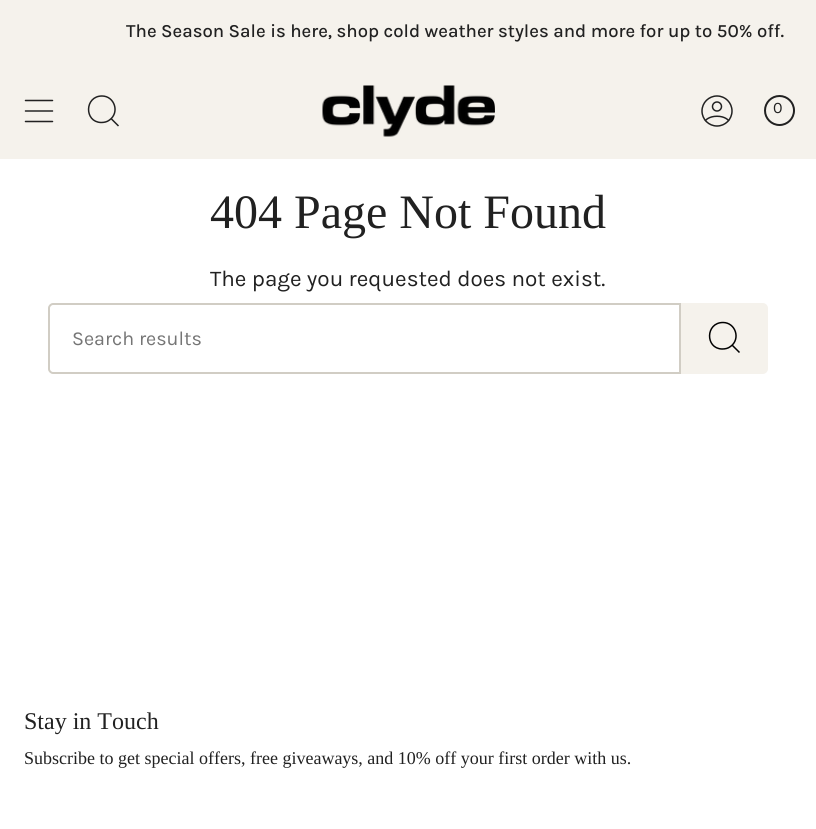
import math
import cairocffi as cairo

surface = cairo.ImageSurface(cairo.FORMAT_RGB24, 816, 829)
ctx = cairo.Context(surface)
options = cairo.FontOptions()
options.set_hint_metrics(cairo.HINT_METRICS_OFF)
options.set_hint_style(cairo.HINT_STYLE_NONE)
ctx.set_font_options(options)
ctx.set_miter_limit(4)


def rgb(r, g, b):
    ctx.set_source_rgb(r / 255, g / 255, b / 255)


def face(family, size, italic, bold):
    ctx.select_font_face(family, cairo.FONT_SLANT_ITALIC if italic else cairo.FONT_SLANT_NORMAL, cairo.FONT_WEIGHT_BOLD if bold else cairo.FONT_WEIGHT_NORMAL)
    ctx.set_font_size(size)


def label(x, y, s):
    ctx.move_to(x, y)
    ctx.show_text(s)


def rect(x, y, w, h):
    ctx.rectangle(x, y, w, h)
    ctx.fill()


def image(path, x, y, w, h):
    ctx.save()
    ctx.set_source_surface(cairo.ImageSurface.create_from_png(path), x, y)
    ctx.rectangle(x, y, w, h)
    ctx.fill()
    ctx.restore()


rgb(255, 255, 255)
ctx.paint()
rgb(245, 242, 236)
rect(0, 0, 816, 159)
face('Karla Medium', 18.55, 0, 0)
rgb(33, 33, 33)
label(126, 37, 'The Season Sale is here, shop cold weather styles and more for up to 50% off.')
ctx.new_path()
ctx.move_to(25.5, 100.5)
ctx.line_to(52.5, 100.5)
ctx.move_to(25.5, 111)
ctx.line_to(52.5, 111)
ctx.move_to(25.5, 121.5)
ctx.line_to(52.5, 121.5)
ctx.set_line_width(1.5)
ctx.set_line_cap(cairo.LINE_CAP_ROUND)
ctx.set_line_join(cairo.LINE_JOIN_ROUND)
ctx.stroke()
ctx.new_path()
ctx.move_to(102, 96)
ctx.curve_to(114.5, 96, 120, 112.5, 109.5, 120)
ctx.curve_to(107, 122, 104, 122.5, 101, 122.5)
ctx.curve_to(84, 122, 84.5, 96, 102, 96)
ctx.close_path()
ctx.move_to(111, 118.5)
ctx.line_to(118.5, 126)
ctx.set_line_cap(cairo.LINE_CAP_BUTT)
ctx.set_line_join(cairo.LINE_JOIN_MITER)
ctx.stroke()
image('image0.png', 322, 85, 173, 52)
image('image1.png', 701, 95, 32, 32)
ctx.arc(779.5, 110.5, 14.5, 0, 2 * math.pi)
ctx.set_line_width(2)
ctx.stroke()
face('Karla', 16, 0, 0)
label(773, 113, '0')
face('Liberation Serif', 48, 0, 0)
label(210, 228, '404 Page Not Found')
face('Karla', 22.5, 0, 0)
label(210, 286, 'The page you requested does not exist.')
ctx.new_path()
ctx.move_to(53, 304)
ctx.line_to(680, 304)
ctx.line_to(680, 373)
ctx.line_to(53, 373)
ctx.curve_to(51, 373, 49, 371, 49, 369)
ctx.line_to(49, 308)
ctx.curve_to(49, 306, 51, 304, 53, 304)
ctx.close_path()
rgb(209, 205, 196)
ctx.stroke()
face('Karla', 19.75, 0, 0)
rgb(117, 117, 117)
label(72, 345, 'Search results')
rgb(245, 242, 236)
ctx.new_path()
ctx.move_to(682, 304)
ctx.line_to(763, 304)
ctx.curve_to(765, 304, 767, 306, 767, 308)
ctx.line_to(767, 369)
ctx.curve_to(767, 371, 765, 373, 763, 373)
ctx.line_to(682, 373)
ctx.close_path()
ctx.fill_preserve()
ctx.stroke()
ctx.new_path()
ctx.move_to(723, 322.5)
ctx.curve_to(735.5, 322.5, 741, 339, 730.5, 346.5)
ctx.curve_to(728, 348.5, 725, 349, 722, 349)
ctx.curve_to(705, 348.5, 705.5, 322.5, 723, 322.5)
ctx.close_path()
ctx.move_to(732, 345)
ctx.line_to(739.5, 352.5)
rgb(0, 0, 0)
ctx.set_line_width(1.5)
ctx.stroke()
face('Liberation Serif', 24, 0, 0)
rgb(33, 33, 33)
label(24, 729, 'Stay in Touch')
face('Liberation Serif', 18, 0, 0)
label(24, 764, 'Subscribe to get special offers, free giveaways, and 10% off your first order with us.')
surface.write_to_png('render.png')
